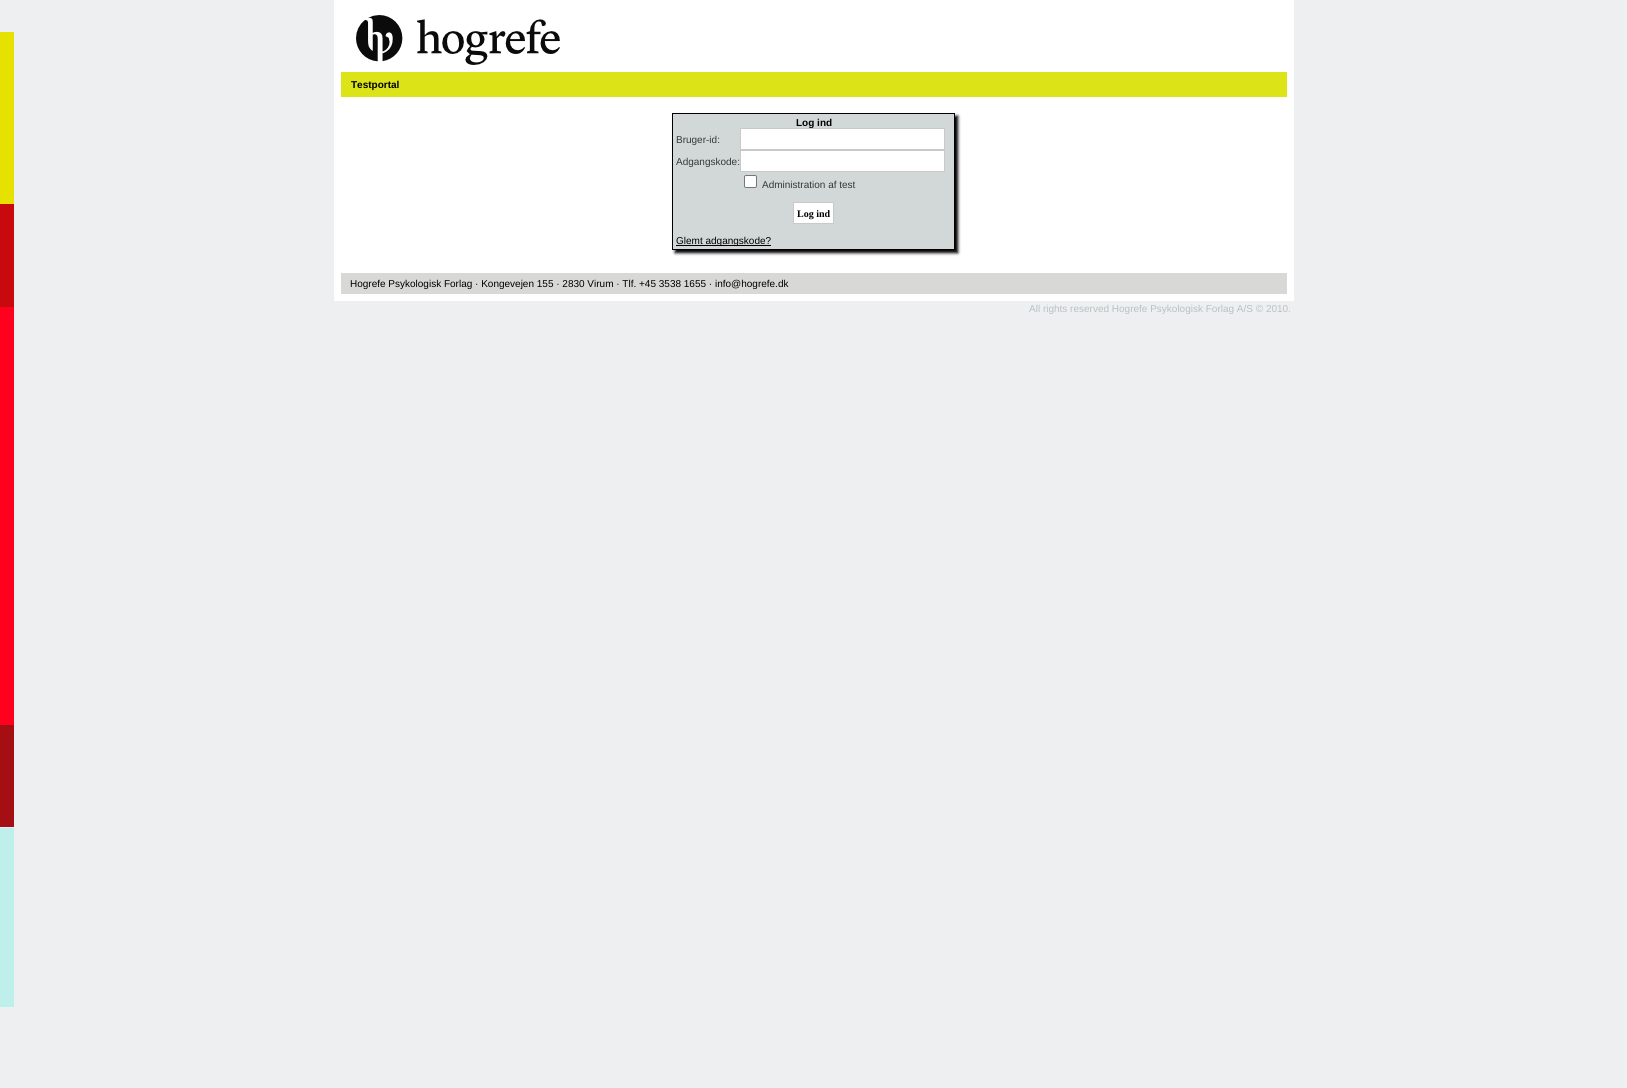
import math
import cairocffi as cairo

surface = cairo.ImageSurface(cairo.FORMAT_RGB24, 1627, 1088)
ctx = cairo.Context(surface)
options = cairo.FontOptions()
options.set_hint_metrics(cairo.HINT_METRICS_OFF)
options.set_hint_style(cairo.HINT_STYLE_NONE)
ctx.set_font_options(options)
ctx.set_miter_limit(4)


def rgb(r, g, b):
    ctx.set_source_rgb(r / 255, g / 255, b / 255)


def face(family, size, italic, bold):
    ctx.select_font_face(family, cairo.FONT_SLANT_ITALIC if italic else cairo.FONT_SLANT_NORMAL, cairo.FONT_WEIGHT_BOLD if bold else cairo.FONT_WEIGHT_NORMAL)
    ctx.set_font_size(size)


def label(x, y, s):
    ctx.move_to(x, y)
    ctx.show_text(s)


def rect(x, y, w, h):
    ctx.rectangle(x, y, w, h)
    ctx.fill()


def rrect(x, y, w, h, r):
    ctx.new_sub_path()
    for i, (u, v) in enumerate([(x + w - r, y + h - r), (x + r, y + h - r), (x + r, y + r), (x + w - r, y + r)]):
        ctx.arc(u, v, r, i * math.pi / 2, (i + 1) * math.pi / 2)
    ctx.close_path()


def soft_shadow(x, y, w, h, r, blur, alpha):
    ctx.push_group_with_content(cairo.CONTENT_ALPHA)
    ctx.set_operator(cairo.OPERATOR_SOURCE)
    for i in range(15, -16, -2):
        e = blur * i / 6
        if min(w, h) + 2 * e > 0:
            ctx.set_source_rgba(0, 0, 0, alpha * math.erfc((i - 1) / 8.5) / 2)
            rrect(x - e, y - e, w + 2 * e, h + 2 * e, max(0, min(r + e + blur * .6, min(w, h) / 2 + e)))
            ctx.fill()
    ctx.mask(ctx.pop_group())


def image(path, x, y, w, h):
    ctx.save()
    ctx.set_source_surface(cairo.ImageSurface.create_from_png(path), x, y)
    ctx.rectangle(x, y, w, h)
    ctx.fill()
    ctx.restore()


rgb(238, 239, 241)
ctx.paint()
rgb(200, 10, 15)
rect(0, 204, 14, 103)
rgb(230, 225, 0)
rect(0, 32, 14, 172)
rgb(255, 0, 30)
rect(0, 307, 14, 418)
rgb(190, 239, 235)
rect(0, 828, 14, 179)
rgb(165, 15, 20)
rect(0, 725, 14, 102)
rgb(255, 255, 255)
rect(334, 0, 960, 273)
image('image0.png', 356, 15, 204, 50)
rgb(220, 227, 23)
rect(341, 72, 946, 25)
face('Liberation Sans', 10, 0, 1)
rgb(0, 0, 0)
label(351, 88, 'Testportal')
rgb(0, 0, 0)
soft_shadow(675, 116, 283, 137, 0, 1.5, 1)
rgb(210, 215, 215)
rect(673, 114, 281, 135)
rgb(0, 0, 0)
rect(672, 113, 283, 1)
rect(954, 113, 1, 137)
rect(672, 249, 7, 1)
rect(672, 113, 1, 137)
label(796, 126, 'Log ind')
face('Liberation Sans', 10, 0, 0)
rgb(54, 56, 56)
label(676, 143, 'Bruger-id:')
rgb(255, 255, 255)
ctx.rectangle(740.5, 128.5, 204, 21)
ctx.fill_preserve()
rgb(199, 202, 201)
ctx.set_line_width(1)
ctx.stroke()
rgb(54, 56, 56)
label(676, 165, 'Adgangskode:')
rgb(255, 255, 255)
ctx.rectangle(740.5, 150.5, 204, 21)
ctx.fill_preserve()
rgb(199, 202, 201)
ctx.stroke()
rgb(255, 255, 255)
rrect(744.5, 175.5, 12, 12, 1.5)
ctx.fill_preserve()
rgb(118, 118, 118)
ctx.stroke()
rgb(54, 56, 56)
label(762, 188, 'Administration af test')
rgb(255, 255, 255)
ctx.rectangle(793.5, 202.5, 40, 21)
ctx.fill_preserve()
rgb(199, 202, 201)
ctx.stroke()
face('Liberation Serif', 10, 0, 1)
rgb(0, 0, 0)
label(797, 217, 'Log ind')
rect(676, 245, 95, 1)
face('Liberation Sans', 10, 0, 0)
label(676, 244, 'Glemt adgangskode?')
rgb(216, 216, 215)
rect(341, 273, 946, 21)
rgb(255, 255, 255)
rect(1287, 273, 7, 28)
rect(334, 294, 960, 7)
rect(334, 273, 7, 28)
rgb(0, 0, 0)
label(350, 287, 'Hogrefe Psykologisk Forlag · Kongevejen 155 · 2830 Virum · Tlf. +45 3538 1655 · info@hogrefe.dk')
rgb(182, 194, 194)
label(1029, 312, 'All rights reserved Hogrefe Psykologisk Forlag A/S © 2010.')
surface.write_to_png('render.png')
